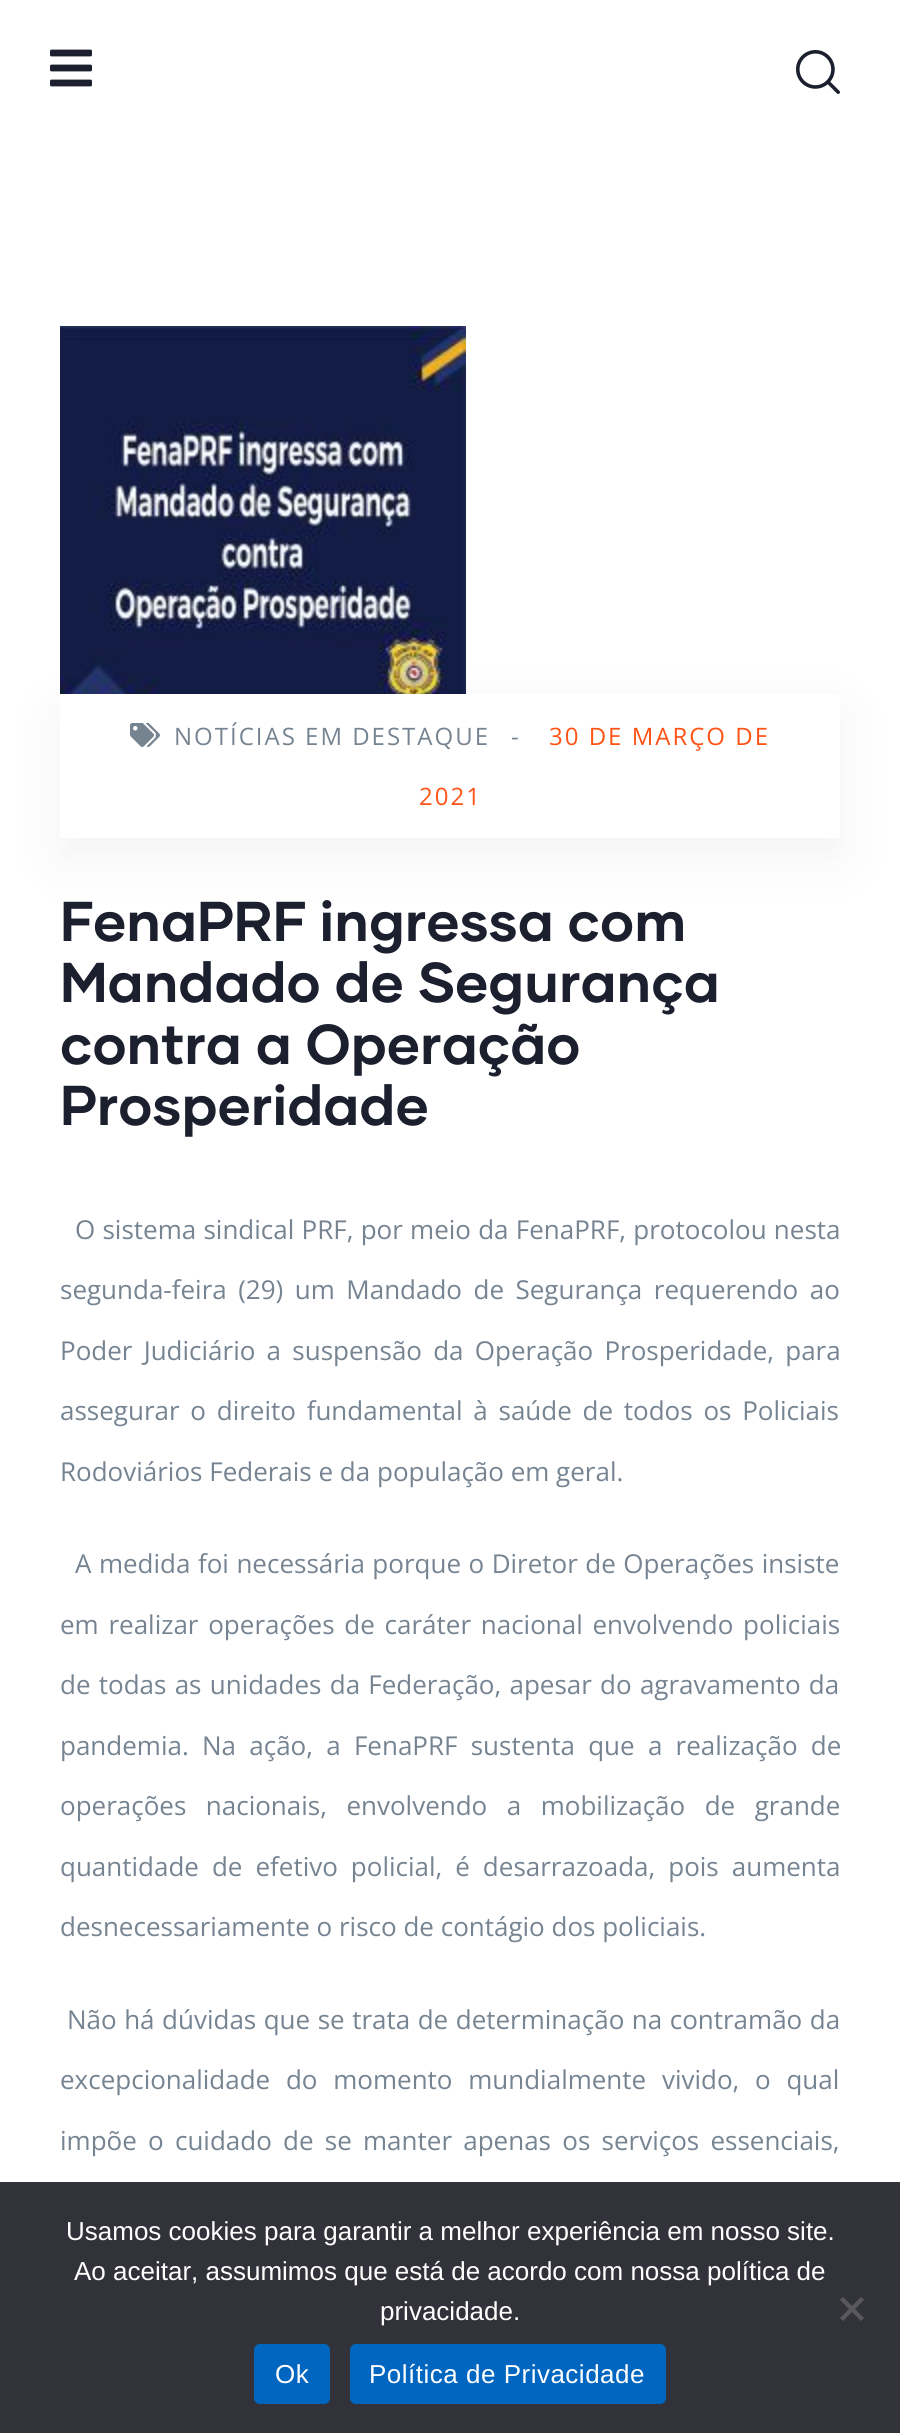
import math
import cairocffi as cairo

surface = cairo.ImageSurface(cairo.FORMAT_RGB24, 900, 2433)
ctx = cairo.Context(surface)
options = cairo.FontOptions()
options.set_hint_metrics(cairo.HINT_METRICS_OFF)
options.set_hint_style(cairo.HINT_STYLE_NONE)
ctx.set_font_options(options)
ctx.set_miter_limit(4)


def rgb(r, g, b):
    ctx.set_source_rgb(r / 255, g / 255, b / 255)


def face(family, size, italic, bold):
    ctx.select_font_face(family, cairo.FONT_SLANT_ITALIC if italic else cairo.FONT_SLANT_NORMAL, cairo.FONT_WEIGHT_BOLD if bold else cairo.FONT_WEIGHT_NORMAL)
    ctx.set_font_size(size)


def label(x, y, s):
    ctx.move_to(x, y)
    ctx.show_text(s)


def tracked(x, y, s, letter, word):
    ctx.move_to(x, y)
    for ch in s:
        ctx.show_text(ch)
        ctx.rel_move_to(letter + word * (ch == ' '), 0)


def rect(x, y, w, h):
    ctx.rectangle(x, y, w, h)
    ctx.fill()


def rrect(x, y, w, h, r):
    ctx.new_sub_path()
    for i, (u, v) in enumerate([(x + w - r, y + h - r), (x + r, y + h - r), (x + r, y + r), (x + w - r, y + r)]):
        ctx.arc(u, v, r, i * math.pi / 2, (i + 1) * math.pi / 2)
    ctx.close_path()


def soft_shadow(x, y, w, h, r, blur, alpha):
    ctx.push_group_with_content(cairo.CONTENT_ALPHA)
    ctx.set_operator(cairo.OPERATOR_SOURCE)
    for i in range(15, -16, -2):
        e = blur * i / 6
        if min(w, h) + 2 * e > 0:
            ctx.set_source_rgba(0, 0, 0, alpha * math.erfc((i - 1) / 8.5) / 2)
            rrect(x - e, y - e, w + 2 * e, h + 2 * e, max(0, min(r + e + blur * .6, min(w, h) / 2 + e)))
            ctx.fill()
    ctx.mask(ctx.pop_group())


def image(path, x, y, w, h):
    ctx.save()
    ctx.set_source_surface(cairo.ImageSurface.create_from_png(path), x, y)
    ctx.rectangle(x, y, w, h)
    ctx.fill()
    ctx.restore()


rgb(255, 255, 255)
ctx.paint()
image('image0.png', 50, 49, 42, 38)
image('image1.png', 796, 50, 44, 44)
image('image2.png', 60, 326, 406, 368)
rgb(0, 0, 0)
soft_shadow(60, 714, 780, 144, 0, 30, 0.05)
rgb(255, 255, 255)
rect(60, 694, 780, 144)
image('image3.png', 130, 723, 30, 24)
face('Open Sans', 24, 0, 0)
rgb(118, 132, 146)
tracked(174, 745, 'NOTÍCIAS EM DESTAQUE', 2, 0)
tracked(511, 745, '-', 2, 0)
rgb(255, 83, 22)
tracked(549, 745, '30 DE MARÇO DE', 2, 0)
tracked(419, 805, '2021', 2, 0)
face('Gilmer', 56, 0, 1)
rgb(27, 31, 46)
label(60, 941, 'FenaPRF ingressa com')
label(60, 1002, 'Mandado de Segurança')
label(60, 1064, 'contra a Operação')
label(60, 1125, 'Prosperidade')
face('Open Sans', 26, 0, 0)
rgb(118, 132, 146)
tracked(75, 1239, 'O sistema sindical PRF, por meio da FenaPRF, protocolou nesta', 0, 0.5)
tracked(60, 1299, 'segunda-feira (29) um Mandado de Segurança requerendo ao', 0, 4.75)
tracked(60, 1360, 'Poder Judiciário a suspensão da Operação Prosperidade, para', 0, 4.5)
tracked(60, 1420, 'assegurar o direito fundamental à saúde de todos os Policiais', 0, 4)
label(60, 1481, 'Rodoviários Federais e da população em geral.')
tracked(75, 1573, 'A medida foi necessária porque o Diretor de Operações insiste', 0, 0.75)
tracked(60, 1634, 'em realizar operações de caráter nacional envolvendo policiais', 0, 3)
tracked(60, 1694, 'de todas as unidades da Federação, apesar do agravamento da', 0, 1.5)
tracked(60, 1755, 'pandemia. Na ação, a FenaPRF sustenta que a realização de', 0, 6.5)
tracked(60, 1815, 'operações nacionais, envolvendo a mobilização de grande', 0, 12.75)
tracked(60, 1876, 'quantidade de efetivo policial, é desarrazoada, pois aumenta', 0, 6.25)
label(60, 1936, 'desnecessariamente o risco de contágio dos policiais.')
tracked(67, 2029, 'Não há dúvidas que se trata de determinação na contramão da', 0, 0.75)
tracked(60, 2089, 'excepcionalidade do momento mundialmente vivido, o qual', 0, 9)
tracked(60, 2150, 'impõe o cuidado de se manter apenas os serviços essenciais,', 0, 4.5)
rgb(50, 50, 58)
rect(0, 2182, 900, 251)
face('Liberation Sans', 26, 0, 0)
rgb(255, 255, 255)
label(66, 2240, 'Usamos cookies para garantir a melhor experiência em nosso site.')
label(74, 2280, 'Ao aceitar, assumimos que está de acordo com nossa política de')
label(380, 2320, 'privacidade.')
rgb(89, 89, 93)
ctx.new_path()
ctx.move_to(861, 2297)
ctx.line_to(864, 2300)
ctx.line_to(843, 2321)
ctx.line_to(840, 2318)
ctx.close_path()
ctx.fill()
ctx.new_path()
ctx.move_to(840, 2300)
ctx.line_to(843, 2297)
ctx.line_to(864, 2318)
ctx.line_to(861, 2321)
ctx.close_path()
ctx.fill()
rgb(0, 102, 191)
rrect(254, 2344, 76, 60, 6)
ctx.fill()
rgb(255, 255, 255)
tracked(275, 2383, 'Ok', 0.5, 0)
rgb(0, 102, 191)
rrect(350, 2344, 316, 60, 6)
ctx.fill()
rgb(255, 255, 255)
tracked(369, 2383, 'Política de Privacidade', 0.5, 0)
surface.write_to_png('render.png')
